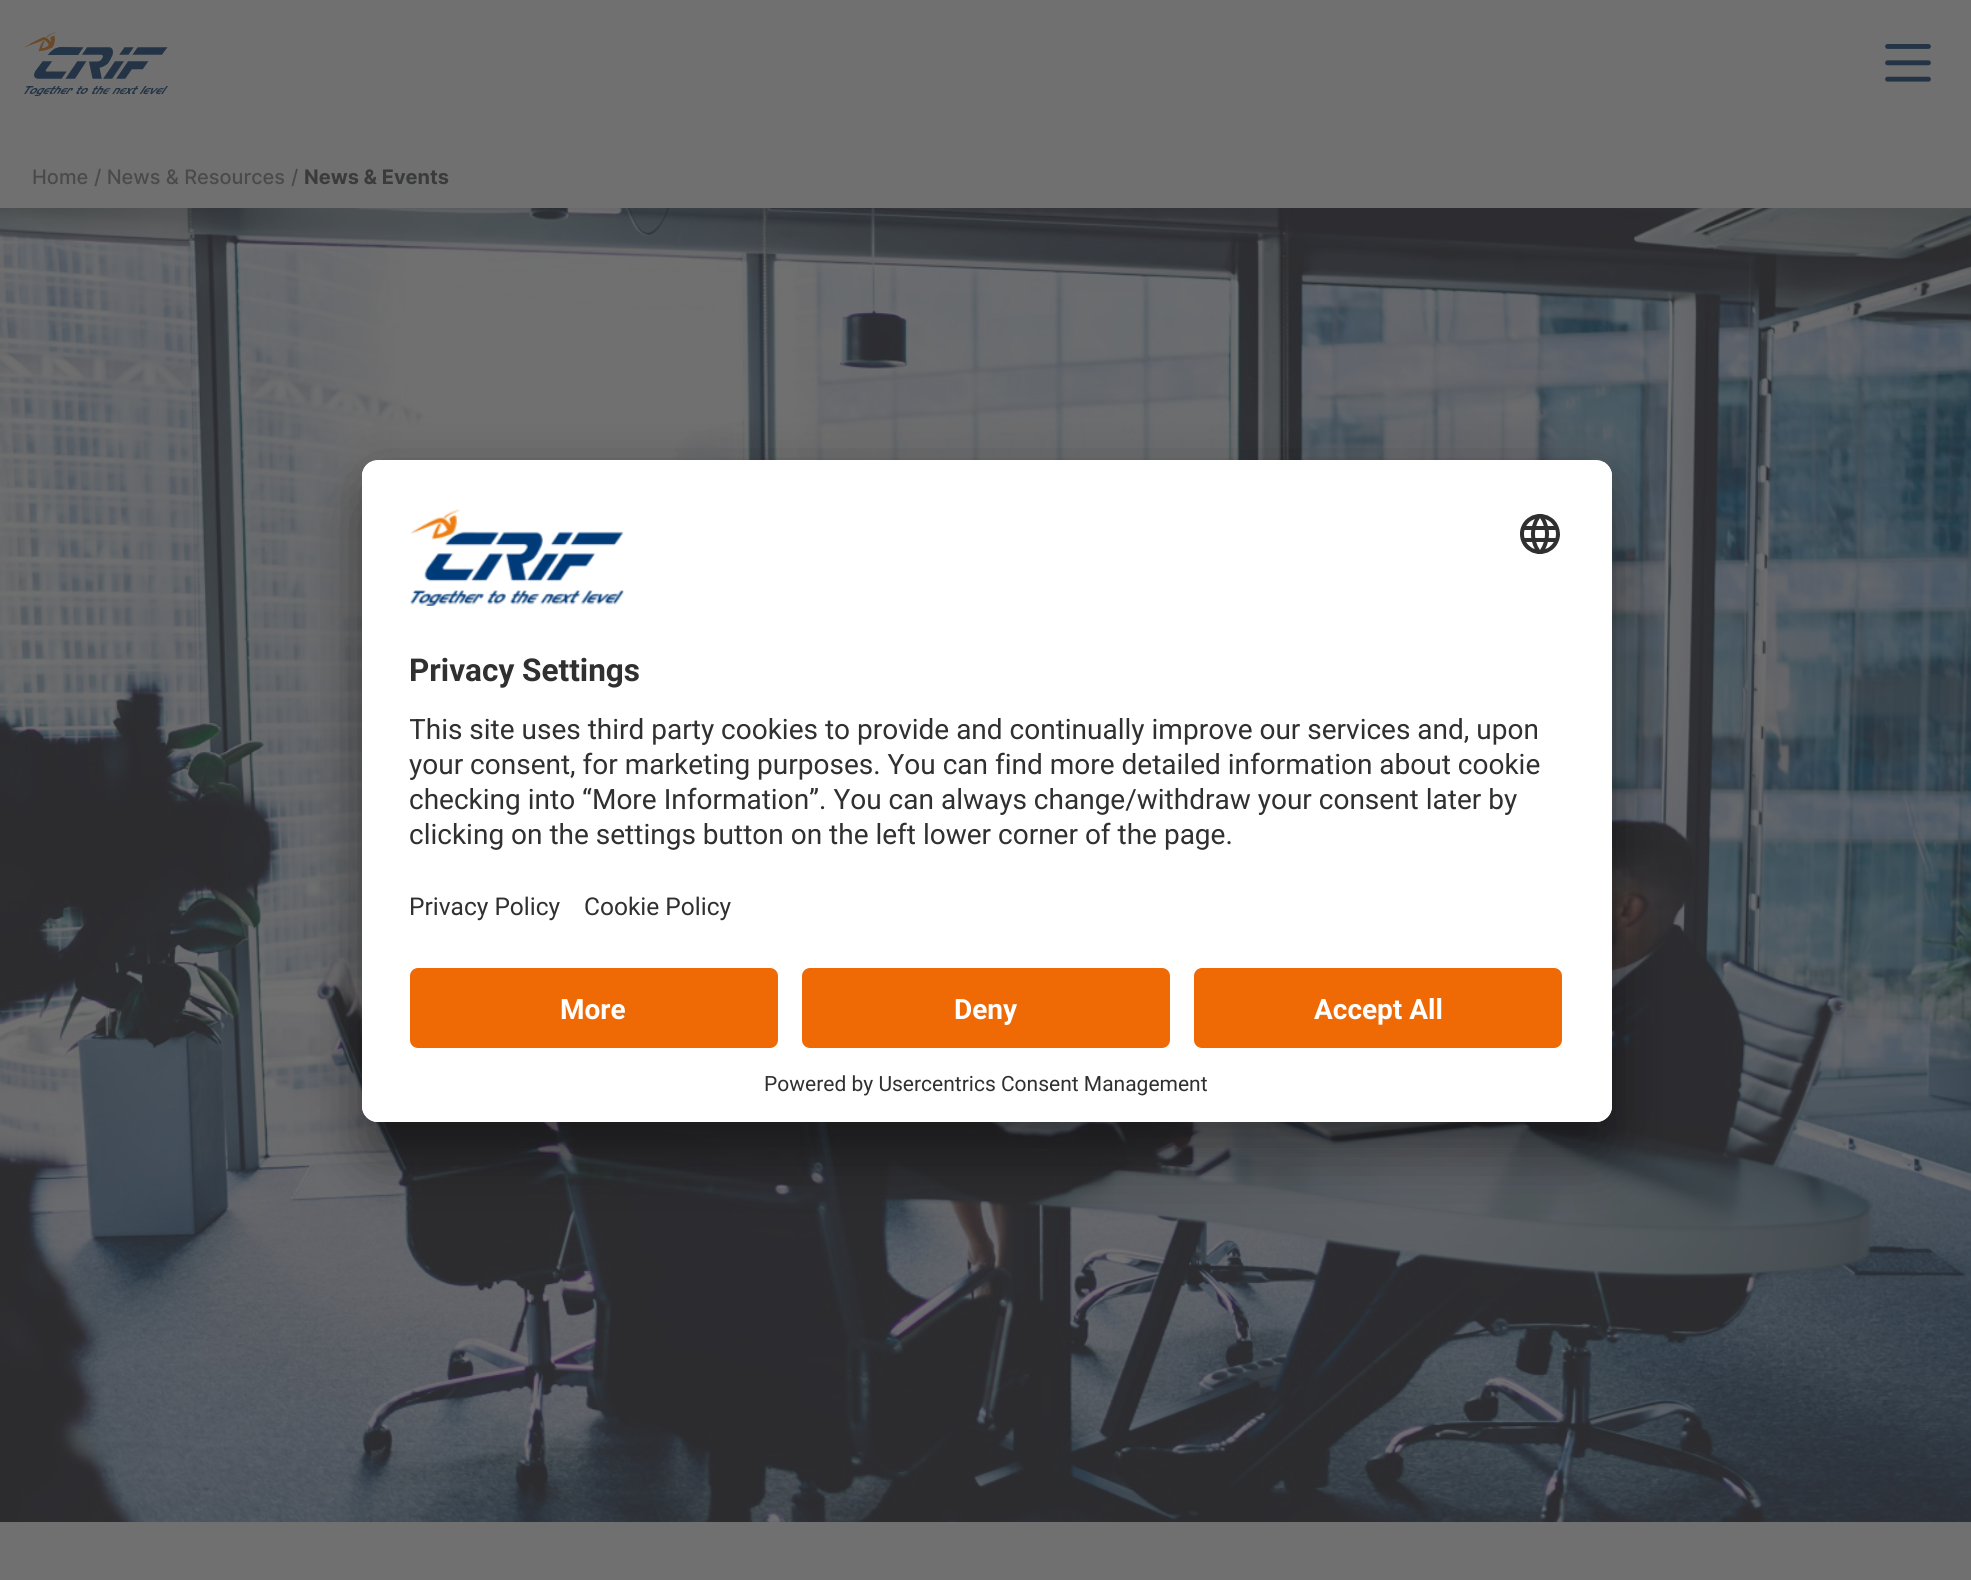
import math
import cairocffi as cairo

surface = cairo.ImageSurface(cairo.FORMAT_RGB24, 1971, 1580)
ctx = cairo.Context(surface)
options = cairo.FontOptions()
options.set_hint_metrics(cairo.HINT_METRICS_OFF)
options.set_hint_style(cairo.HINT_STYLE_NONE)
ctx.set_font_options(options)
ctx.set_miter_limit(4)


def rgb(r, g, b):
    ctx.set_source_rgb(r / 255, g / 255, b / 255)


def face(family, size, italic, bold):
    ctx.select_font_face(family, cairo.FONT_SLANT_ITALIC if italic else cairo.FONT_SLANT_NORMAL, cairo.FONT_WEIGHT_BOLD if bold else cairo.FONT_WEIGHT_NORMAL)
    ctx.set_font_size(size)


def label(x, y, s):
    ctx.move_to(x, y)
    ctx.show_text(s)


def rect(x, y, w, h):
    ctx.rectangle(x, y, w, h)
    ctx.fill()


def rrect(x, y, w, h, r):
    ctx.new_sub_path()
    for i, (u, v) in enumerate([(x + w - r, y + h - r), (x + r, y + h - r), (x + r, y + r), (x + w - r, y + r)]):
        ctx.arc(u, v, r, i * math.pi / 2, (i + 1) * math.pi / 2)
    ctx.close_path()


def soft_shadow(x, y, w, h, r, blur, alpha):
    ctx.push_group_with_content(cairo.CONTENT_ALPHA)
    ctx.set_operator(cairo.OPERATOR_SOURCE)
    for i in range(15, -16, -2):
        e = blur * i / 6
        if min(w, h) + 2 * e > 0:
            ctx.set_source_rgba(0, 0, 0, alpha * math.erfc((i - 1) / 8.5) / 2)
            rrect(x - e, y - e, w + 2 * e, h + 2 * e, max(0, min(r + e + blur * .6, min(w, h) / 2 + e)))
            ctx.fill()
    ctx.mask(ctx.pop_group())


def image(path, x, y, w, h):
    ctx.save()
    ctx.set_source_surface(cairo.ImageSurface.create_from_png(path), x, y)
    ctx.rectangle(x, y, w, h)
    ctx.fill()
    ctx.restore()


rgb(112, 112, 112)
ctx.paint()
image('image0.png', 24, 32, 144, 64)
image('image1.png', 1885, 44, 46, 38)
face('Inter Medium', 20, 0, 0)
rgb(73, 74, 76)
label(32, 184, 'Home')
label(94, 184, '/ News & Resources')
label(291, 184, '/')
face('Inter', 20, 0, 1)
rgb(58, 59, 60)
label(304, 184, 'News & Events')
image('image2.png', 0, 208, 1971, 1314)
rgb(0, 0, 0)
soft_shadow(362, 500, 1250, 662, 16, 28, 0.3)
soft_shadow(362, 470, 1250, 662, 16, 26, 0.22)
rgb(255, 255, 255)
rrect(362, 460, 1250, 662, 16)
ctx.fill()
ctx.save()
rrect(362, 460, 1250, 662, 16)
ctx.clip()
ctx.new_path()
ctx.move_to(378, 460)
ctx.line_to(1596, 460)
ctx.curve_to(1605, 460, 1612, 467, 1612, 476)
ctx.line_to(1612, 952)
ctx.line_to(362, 952)
ctx.line_to(362, 476)
ctx.curve_to(362, 467, 369, 460, 378, 460)
ctx.close_path()
ctx.clip()
rect(362, 462, 1250, 490)
ctx.restore()
image('image3.png', 410, 509, 214, 97)
image('image4.png', 1520, 514, 40, 40)
face('Roboto', 31.5, 0, 1)
rgb(48, 48, 48)
label(409, 681, 'Privacy Settings')
ctx.save()
ctx.rectangle(410, 706, 1154, 156)
ctx.clip()
face('Roboto', 28, 0, 0)
label(409, 739, 'This site uses third party cookies to provide and continually improve our services and, upon')
ctx.restore()
face('Roboto', 28, 0, 0)
label(409, 774, 'your consent, for marketing purposes. You can find more detailed information about cookie')
label(409, 809, 'checking into “More Information”. You can always change/withdraw your consent later by')
label(409, 844, 'clicking on the settings button on the left lower corner of the page.')
face('Roboto', 24.5, 0, 0)
label(409, 915, 'Privacy Policy')
label(584, 915, 'Cookie Policy')
rgb(255, 255, 255)
ctx.new_path()
ctx.move_to(362, 952)
ctx.line_to(1612, 952)
ctx.line_to(1612, 1106)
ctx.curve_to(1612, 1115, 1605, 1122, 1596, 1122)
ctx.line_to(378, 1122)
ctx.curve_to(369, 1122, 362, 1115, 362, 1106)
ctx.close_path()
ctx.fill()
rgb(239, 105, 5)
rrect(410, 968, 368, 80, 8)
ctx.fill()
face('Roboto', 28, 0, 1)
rgb(255, 255, 255)
label(560, 1019, 'More')
rgb(239, 105, 5)
rrect(802, 968, 368, 80, 8)
ctx.fill()
rgb(255, 255, 255)
label(954, 1019, 'Deny')
rgb(239, 105, 5)
rrect(1194, 968, 368, 80, 8)
ctx.fill()
rgb(255, 255, 255)
label(1314, 1019, 'Accept All')
face('Roboto', 21, 0, 0)
rgb(48, 48, 48)
label(764, 1091, 'Powered by Usercentrics Consent Management')
surface.write_to_png('render.png')
